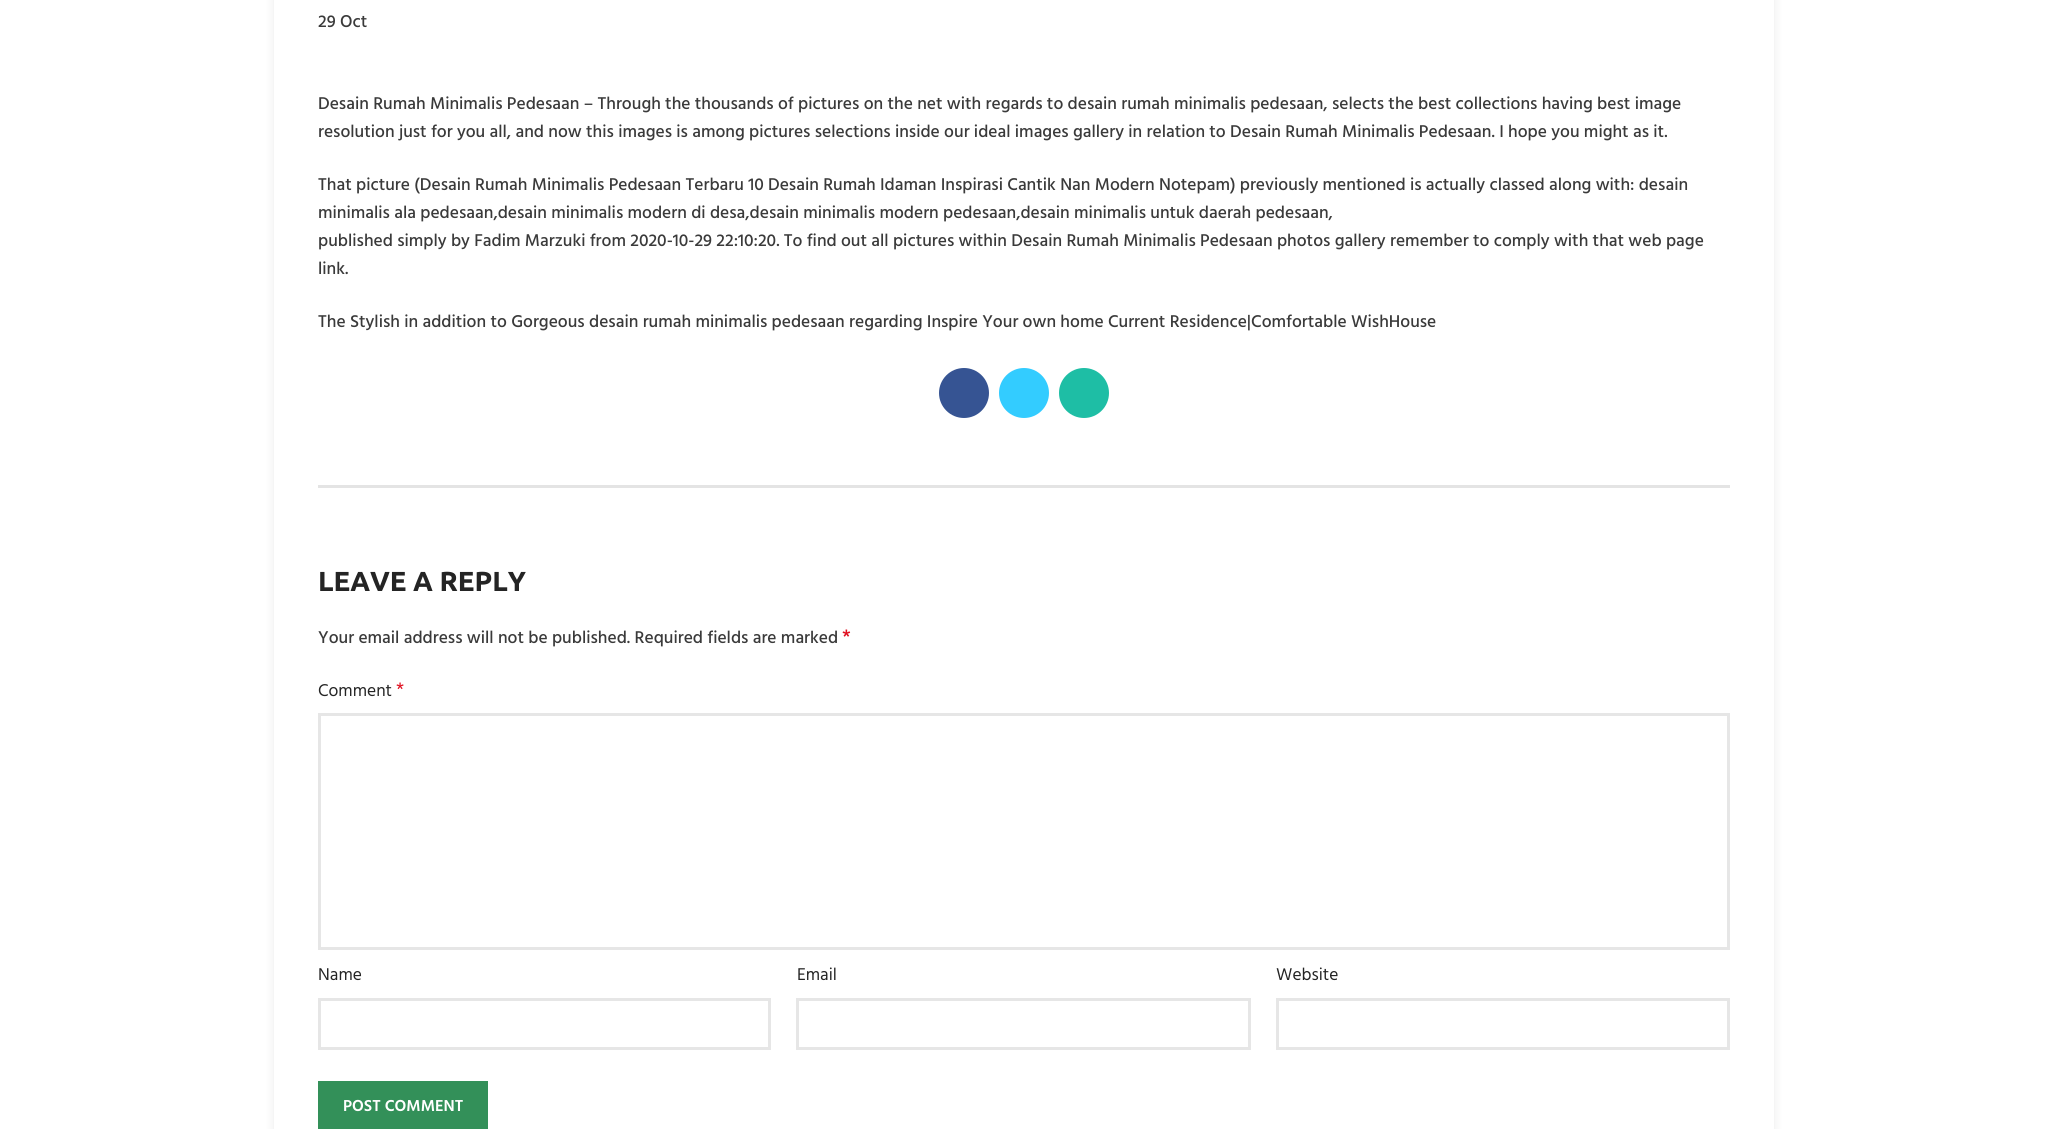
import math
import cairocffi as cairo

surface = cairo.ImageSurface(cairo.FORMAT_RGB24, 2047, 1129)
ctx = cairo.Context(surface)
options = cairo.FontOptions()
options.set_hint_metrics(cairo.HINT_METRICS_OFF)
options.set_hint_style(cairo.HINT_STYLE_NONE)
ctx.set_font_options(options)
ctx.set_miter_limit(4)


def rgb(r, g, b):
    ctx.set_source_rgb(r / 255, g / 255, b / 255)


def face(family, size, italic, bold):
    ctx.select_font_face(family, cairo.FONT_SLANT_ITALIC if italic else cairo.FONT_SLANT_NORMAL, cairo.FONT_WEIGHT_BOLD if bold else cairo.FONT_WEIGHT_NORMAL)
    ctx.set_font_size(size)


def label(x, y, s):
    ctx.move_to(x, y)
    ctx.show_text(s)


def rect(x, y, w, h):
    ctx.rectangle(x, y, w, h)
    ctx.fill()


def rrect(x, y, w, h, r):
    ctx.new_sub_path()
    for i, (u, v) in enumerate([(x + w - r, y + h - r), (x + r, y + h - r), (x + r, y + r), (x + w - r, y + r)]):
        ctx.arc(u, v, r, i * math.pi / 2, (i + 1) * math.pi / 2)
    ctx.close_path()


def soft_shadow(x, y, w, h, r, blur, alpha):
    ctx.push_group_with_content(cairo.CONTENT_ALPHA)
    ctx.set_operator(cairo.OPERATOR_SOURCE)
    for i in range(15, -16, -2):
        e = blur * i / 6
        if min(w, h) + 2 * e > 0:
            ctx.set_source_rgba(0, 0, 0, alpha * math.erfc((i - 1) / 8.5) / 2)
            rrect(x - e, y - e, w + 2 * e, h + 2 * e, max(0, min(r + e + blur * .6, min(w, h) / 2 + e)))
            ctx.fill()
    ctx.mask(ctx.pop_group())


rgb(255, 255, 255)
ctx.paint()
rgb(0, 0, 0)
soft_shadow(274, -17, 1500, 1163, 0, 5.5, 0.08)
rgb(255, 255, 255)
rect(274, 0, 1500, 1129)
face('Hind Medium', 17.5, 0, 0)
rgb(58, 58, 58)
label(318, 27, '29 Oct')
label(318, 109, 'Desain Rumah Minimalis Pedesaan – Through the thousands of pictures on the net with regards to desain rumah minimalis pedesaan, selects the best collections having best image')
label(318, 137, 'resolution just for you all, and now this images is among pictures selections inside our ideal images gallery in relation to Desain Rumah Minimalis Pedesaan. I hope you might as it.')
label(318, 190, 'That picture (Desain Rumah Minimalis Pedesaan Terbaru 10 Desain Rumah Idaman Inspirasi Cantik Nan Modern Notepam) previously mentioned is actually classed along with: desain')
label(318, 218, 'minimalis ala pedesaan,desain minimalis modern di desa,desain minimalis modern pedesaan,desain minimalis untuk daerah pedesaan,')
label(318, 246, 'published simply by Fadim Marzuki from 2020-10-29 22:10:20. To find out all pictures within Desain Rumah Minimalis Pedesaan photos gallery remember to comply with that web page')
label(318, 274, 'link.')
label(318, 327, 'The Stylish in addition to Gorgeous desain rumah minimalis pedesaan regarding Inspire Your own home Current Residence|Comfortable WishHouse')
rgb(54, 84, 147)
ctx.new_path()
ctx.arc(964, 393, 25, 0, 2 * math.pi)
ctx.fill()
rgb(51, 204, 255)
ctx.arc(1024, 393, 25, 0, 2 * math.pi)
ctx.fill()
rgb(30, 190, 165)
ctx.arc(1084, 393, 25, 0, 2 * math.pi)
ctx.fill()
rgb(228, 228, 228)
rect(318, 485, 1412, 3)
face('Ubuntu', 27.5, 0, 1)
rgb(36, 36, 36)
label(318, 591, 'LEAVE A REPLY')
face('Hind Medium', 17.5, 0, 0)
rgb(58, 58, 58)
label(318, 643, 'Your email address will not be published. Required fields are marked')
face('Hind Medium', 20, 0, 0)
rgb(224, 16, 32)
label(842, 643, '*')
face('Hind', 17.5, 0, 0)
rgb(36, 36, 36)
label(318, 696, 'Comment')
face('Hind', 20, 0, 0)
rgb(224, 16, 32)
label(396, 696, '*')
ctx.rectangle(319.5, 714.5, 1409, 234)
rgb(230, 230, 230)
ctx.set_line_width(3)
ctx.stroke()
face('Hind', 17.5, 0, 0)
rgb(36, 36, 36)
label(318, 980, 'Name')
ctx.rectangle(319.5, 999.5, 450, 49)
rgb(230, 230, 230)
ctx.stroke()
rgb(36, 36, 36)
label(797, 980, 'Email')
ctx.rectangle(797.5, 999.5, 452, 49)
rgb(230, 230, 230)
ctx.stroke()
rgb(36, 36, 36)
label(1276, 980, 'Website')
ctx.rectangle(1277.5, 999.5, 451, 49)
rgb(230, 230, 230)
ctx.stroke()
rgb(51, 144, 89)
rect(318, 1081, 170, 48)
face('Hind SemiBold', 16.25, 0, 0)
rgb(255, 255, 255)
label(343, 1111, 'POST COMMENT')
surface.write_to_png('render.png')
